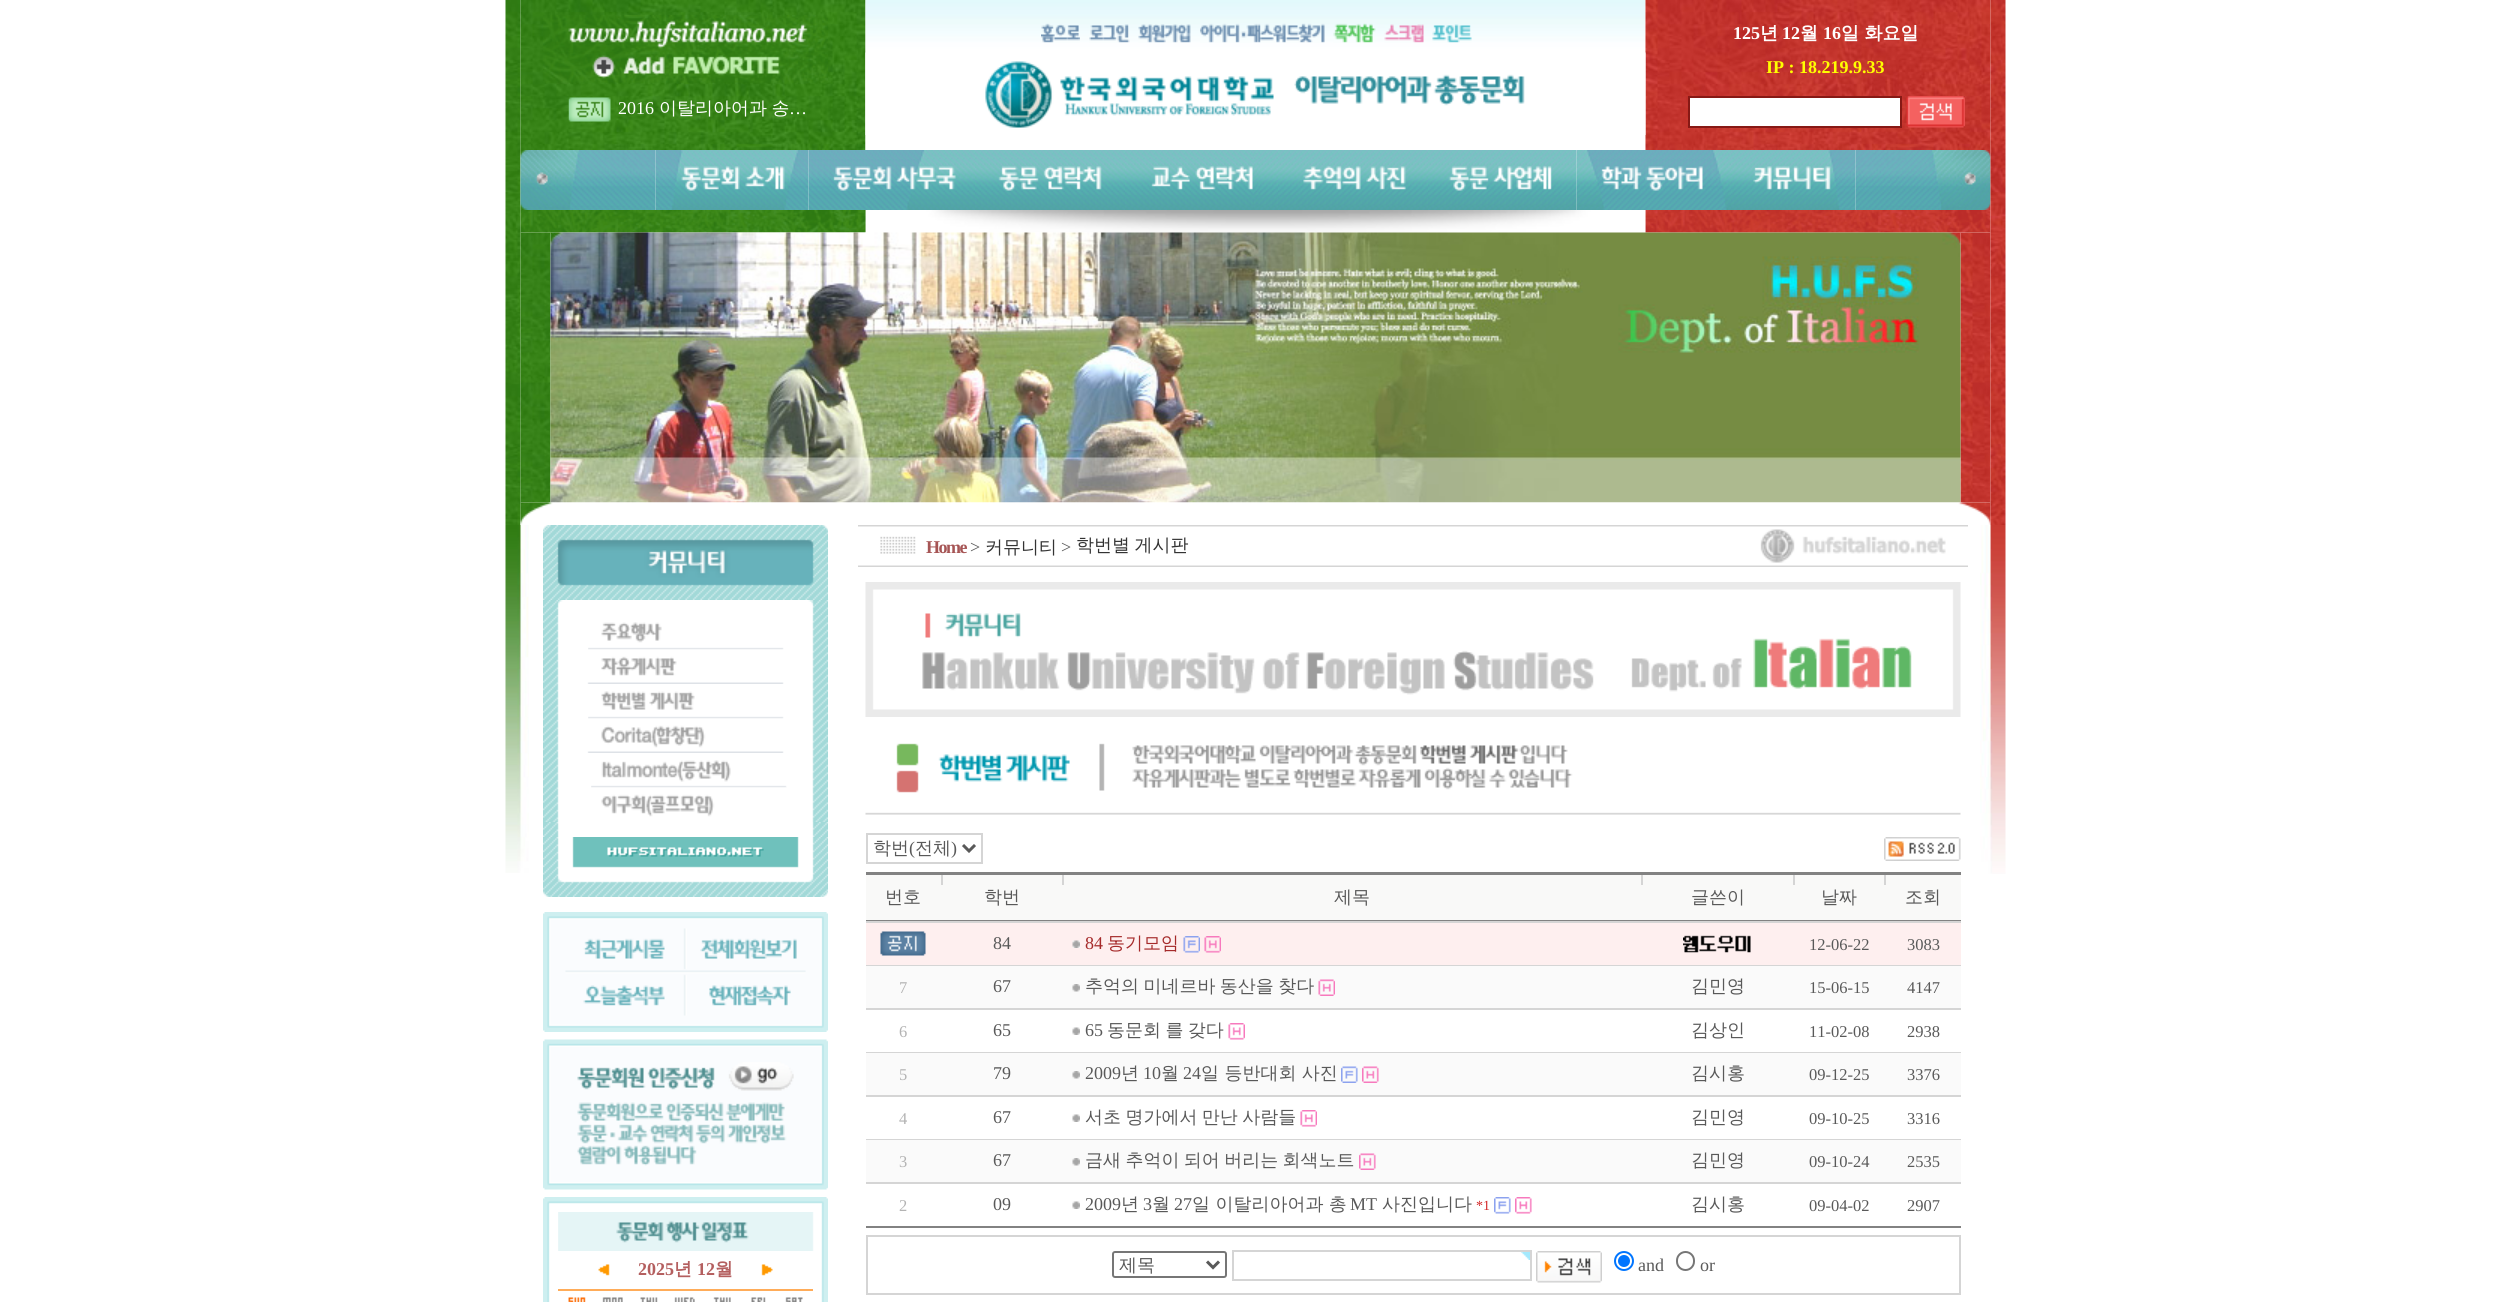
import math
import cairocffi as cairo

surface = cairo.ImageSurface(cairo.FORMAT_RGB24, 2510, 1302)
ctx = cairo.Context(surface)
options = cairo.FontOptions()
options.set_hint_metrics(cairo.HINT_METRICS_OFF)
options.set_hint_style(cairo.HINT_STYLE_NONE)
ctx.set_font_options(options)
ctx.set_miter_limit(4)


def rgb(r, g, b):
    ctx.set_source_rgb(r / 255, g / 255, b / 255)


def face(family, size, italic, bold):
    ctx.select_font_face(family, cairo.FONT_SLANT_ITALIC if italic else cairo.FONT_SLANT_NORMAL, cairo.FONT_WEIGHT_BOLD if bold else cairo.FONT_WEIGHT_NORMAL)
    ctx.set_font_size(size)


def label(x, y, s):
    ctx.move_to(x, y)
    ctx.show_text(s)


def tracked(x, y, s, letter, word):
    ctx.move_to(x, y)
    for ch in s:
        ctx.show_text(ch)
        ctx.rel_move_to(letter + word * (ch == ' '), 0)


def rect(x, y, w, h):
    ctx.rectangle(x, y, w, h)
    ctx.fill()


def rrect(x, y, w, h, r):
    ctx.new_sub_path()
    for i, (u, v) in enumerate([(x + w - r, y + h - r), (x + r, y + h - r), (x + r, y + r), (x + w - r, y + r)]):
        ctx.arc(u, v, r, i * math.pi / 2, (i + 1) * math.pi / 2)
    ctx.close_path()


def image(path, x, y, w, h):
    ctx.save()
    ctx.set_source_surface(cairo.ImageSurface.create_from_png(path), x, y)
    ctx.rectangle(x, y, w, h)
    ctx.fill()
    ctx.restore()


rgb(255, 255, 255)
ctx.paint()
image('image12.png', 520, 0, 346, 150)
image('image27.png', 520, 232, 31, 271)
image('image0.png', 505, 0, 16, 525)
image('image1.png', 865, 0, 781, 150)
image('image2.png', 1041, 23, 39, 20)
image('image3.png', 1089, 24, 41, 19)
image('image4.png', 1138, 24, 53, 19)
image('image5.png', 1200, 23, 125, 20)
image('image6.png', 1333, 23, 43, 20)
image('image7.png', 1384, 24, 40, 19)
image('image8.png', 1432, 24, 40, 19)
image('image10.png', 1645, 0, 346, 150)
image('image9.png', 865, 52, 781, 83)
face('Liberation Serif', 18, 0, 1)
rgb(255, 255, 255)
label(1733, 39, '125')
face('WenQuanYi Zen Hei', 18, 0, 1)
label(1760, 39, '년')
face('Liberation Serif', 18, 0, 1)
label(1782, 39, '12')
face('WenQuanYi Zen Hei', 18, 0, 1)
label(1800, 39, '월')
face('Liberation Serif', 18, 0, 1)
label(1823, 39, '16')
face('WenQuanYi Zen Hei', 18, 0, 1)
label(1841, 39, '일 화요일')
face('Liberation Serif', 18, 0, 1)
rgb(255, 255, 0)
label(1766, 73, 'IP : 18.219.9.33')
rgb(255, 255, 255)
ctx.rectangle(1689, 97, 212, 30)
ctx.fill_preserve()
rgb(135, 25, 21)
ctx.stroke()
image('image11.png', 1906, 96, 59, 32)
image('image13.png', 543, 15, 285, 38)
image('image14.png', 543, 52, 285, 31)
image('image15.png', 568, 97, 43, 25)
face('Liberation Serif', 18, 0, 0)
rgb(255, 255, 255)
label(618, 114, '2016')
face('WenQuanYi Zen Hei Medium', 18, 0, 0)
tracked(659, 114, '이탈리아어과 송', 0, -1)
face('Liberation Serif', 18, 0, 0)
label(789, 114, '…')
image('image16.png', 520, 150, 136, 60)
image('image17.png', 655, 150, 154, 60)
image('image18.png', 808, 150, 167, 60)
image('image19.png', 975, 150, 150, 60)
image('image20.png', 1125, 150, 153, 60)
image('image21.png', 1278, 150, 150, 60)
image('image22.png', 1428, 150, 149, 60)
image('image23.png', 1576, 150, 155, 60)
image('image24.png', 1731, 150, 125, 60)
image('image25.png', 1855, 150, 136, 60)
image('image29.png', 1960, 232, 31, 271)
image('image26.png', 520, 210, 1471, 23)
image('image28.png', 550, 232, 1411, 271)
image('image30.png', 520, 502, 1471, 23)
image('image31.png', 1990, 0, 16, 525)
image('image32.png', 505, 525, 24, 348)
image('image33.png', 543, 525, 285, 75)
image('image34.png', 543, 600, 285, 15)
image('image35.png', 543, 615, 285, 207)
image('image36.png', 588, 622, 196, 28)
image('image37.png', 587, 649, 197, 35)
image('image38.png', 588, 691, 196, 28)
image('image39.png', 587, 718, 197, 35)
image('image40.png', 591, 760, 196, 28)
image('image41.png', 591, 787, 195, 30)
image('image42.png', 543, 822, 285, 15)
image('image43.png', 543, 837, 285, 60)
image('image44.png', 543, 912, 285, 120)
image('image45.png', 543, 1039, 285, 151)
image('image46.png', 543, 1204, 285, 98)
image('image47.png', 543, 1197, 285, 7)
image('image48.png', 558, 1212, 256, 39)
image('image49.png', 598, 1264, 12, 12)
face('Liberation Serif', 18, 0, 1)
rgb(180, 95, 95)
label(638, 1275, '2025')
face('WenQuanYi Zen Hei', 18, 0, 1)
label(674, 1275, '년')
face('Liberation Serif', 18, 0, 1)
label(697, 1275, '12')
face('WenQuanYi Zen Hei', 18, 0, 1)
label(715, 1275, '월')
image('image50.png', 761, 1264, 12, 12)
rgb(255, 172, 89)
rect(558, 1289, 255, 2)
image('image51.png', 568, 1297, 18, 5)
image('image52.png', 602, 1297, 21, 5)
image('image53.png', 640, 1297, 18, 5)
image('image54.png', 674, 1297, 21, 5)
image('image55.png', 713, 1297, 18, 5)
image('image56.png', 751, 1297, 15, 5)
image('image57.png', 785, 1297, 18, 5)
image('image58.png', 858, 525, 1110, 42)
face('Liberation Serif', 18, 0, 1)
rgb(166, 85, 85)
tracked(926, 553, 'Home', -1.5, 0)
face('Liberation Serif', 18, 0, 0)
rgb(89, 89, 89)
label(970, 553, '>')
face('WenQuanYi Zen Hei Medium', 18, 0, 0)
rgb(51, 51, 51)
label(985, 553, '커뮤니티')
face('Liberation Serif', 18, 0, 0)
rgb(89, 89, 89)
label(1061, 553, '>')
face('WenQuanYi Zen Hei Medium', 18, 0, 0)
rgb(51, 51, 51)
tracked(1076, 551, '학번별 게시판', 0, -1)
image('image59.png', 865, 582, 1096, 135)
image('image60.png', 865, 743, 1096, 72)
ctx.rectangle(867, 834, 115, 29)
rgb(213, 213, 213)
ctx.stroke()
ctx.new_path()
ctx.move_to(963, 845)
ctx.line_to(969, 851)
ctx.line_to(975, 845)
rgb(89, 89, 89)
ctx.set_line_width(3)
ctx.stroke()
label(873, 854, '학번')
face('Liberation Serif', 18, 0, 0)
label(909, 854, '(')
face('WenQuanYi Zen Hei Medium', 18, 0, 0)
label(915, 854, '전체')
face('Liberation Serif', 18, 0, 0)
label(951, 854, ')')
image('image61.png', 1884, 837, 77, 24)
rgb(130, 130, 130)
rect(866, 872, 1095, 3)
rgb(249, 249, 248)
rect(866, 875, 1095, 45)
rgb(213, 213, 213)
rect(941, 875, 2, 10)
rect(1062, 875, 2, 10)
rect(1641, 875, 2, 10)
rect(1793, 875, 2, 10)
rect(1884, 875, 2, 10)
face('WenQuanYi Zen Hei Medium', 18, 0, 0)
rgb(89, 89, 89)
label(885, 903, '번호')
label(984, 903, '학번')
label(1334, 903, '제목')
label(1691, 903, '글쓴이')
label(1821, 903, '날짜')
label(1905, 903, '조회')
rgb(130, 130, 130)
rect(866, 920, 1095, 1)
rgb(213, 213, 213)
rect(866, 921, 1095, 2)
rgb(254, 239, 239)
rect(866, 923, 1095, 42)
image('image62.png', 880, 931, 46, 25)
face('Liberation Serif', 18, 0, 0)
rgb(89, 89, 89)
label(993, 949, '84')
image('image63.png', 1072, 940, 8, 8)
rgb(165, 42, 42)
label(1085, 949, '84')
face('WenQuanYi Zen Hei Medium', 18, 0, 0)
label(1107, 949, '동기모임')
image('image64.png', 1183, 936, 17, 17)
image('image65.png', 1204, 936, 17, 17)
image('image66.png', 1683, 935, 68, 18)
face('Liberation Serif', 16.5, 0, 0)
rgb(89, 89, 89)
label(1809, 950, '12-06-22')
label(1907, 950, '3083')
rgb(213, 213, 213)
rect(866, 965, 1095, 1)
rgb(250, 250, 250)
rect(866, 966, 1095, 42)
rgb(179, 179, 179)
label(899, 993, '7')
face('Liberation Serif', 18, 0, 0)
rgb(89, 89, 89)
label(993, 992, '67')
image('image67.png', 1072, 984, 8, 8)
face('WenQuanYi Zen Hei Medium', 18, 0, 0)
tracked(1085, 992, '추억의 미네르바 동산을 찾다', 0, -1)
image('image68.png', 1318, 979, 17, 17)
label(1691, 992, '김민영')
face('Liberation Serif', 16.5, 0, 0)
label(1809, 993, '15-06-15')
label(1907, 993, '4147')
rgb(213, 213, 213)
rect(866, 1008, 1095, 2)
rgb(179, 179, 179)
label(899, 1037, '6')
face('Liberation Serif', 18, 0, 0)
rgb(89, 89, 89)
label(993, 1036, '65')
image('image69.png', 1072, 1027, 8, 8)
label(1085, 1036, '65')
face('WenQuanYi Zen Hei Medium', 18, 0, 0)
tracked(1107, 1036, '동문회 를 갖다', 0, -1)
image('image70.png', 1228, 1023, 17, 17)
label(1691, 1036, '김상인')
face('Liberation Serif', 16.5, 0, 0)
label(1809, 1037, '11-02-08')
label(1907, 1037, '2938')
rgb(213, 213, 213)
rect(866, 1052, 1095, 1)
rgb(250, 250, 250)
rect(866, 1053, 1095, 42)
rgb(179, 179, 179)
label(899, 1080, '5')
face('Liberation Serif', 18, 0, 0)
rgb(89, 89, 89)
label(993, 1079, '79')
image('image67.png', 1072, 1071, 8, 8)
label(1085, 1079, '2009')
face('WenQuanYi Zen Hei Medium', 18, 0, 0)
label(1121, 1079, '년')
face('Liberation Serif', 18, 0, 0)
label(1143, 1079, '10')
face('WenQuanYi Zen Hei Medium', 18, 0, 0)
label(1161, 1079, '월')
face('Liberation Serif', 18, 0, 0)
label(1183, 1079, '24')
face('WenQuanYi Zen Hei Medium', 18, 0, 0)
label(1201, 1079, '일 등반대회 사진')
image('image71.png', 1341, 1066, 17, 17)
image('image72.png', 1362, 1066, 17, 17)
label(1691, 1079, '김시홍')
face('Liberation Serif', 16.5, 0, 0)
label(1809, 1080, '09-12-25')
label(1907, 1080, '3376')
rgb(213, 213, 213)
rect(866, 1095, 1095, 2)
rgb(179, 179, 179)
label(899, 1124, '4')
face('Liberation Serif', 18, 0, 0)
rgb(89, 89, 89)
label(993, 1123, '67')
image('image69.png', 1072, 1114, 8, 8)
face('WenQuanYi Zen Hei Medium', 18, 0, 0)
tracked(1085, 1123, '서초 명가에서 만난 사람들', 0, -1)
image('image73.png', 1300, 1110, 17, 17)
label(1691, 1123, '김민영')
face('Liberation Serif', 16.5, 0, 0)
label(1809, 1124, '09-10-25')
label(1907, 1124, '3316')
rgb(213, 213, 213)
rect(866, 1139, 1095, 1)
rgb(250, 250, 250)
rect(866, 1140, 1095, 42)
rgb(179, 179, 179)
label(899, 1167, '3')
face('Liberation Serif', 18, 0, 0)
rgb(89, 89, 89)
label(993, 1166, '67')
image('image67.png', 1072, 1158, 8, 8)
face('WenQuanYi Zen Hei Medium', 18, 0, 0)
tracked(1085, 1166, '금새 추억이 되어 버리는 회색노트', 0, -1)
image('image72.png', 1359, 1153, 17, 17)
label(1691, 1166, '김민영')
face('Liberation Serif', 16.5, 0, 0)
label(1809, 1167, '09-10-24')
label(1907, 1167, '2535')
rgb(213, 213, 213)
rect(866, 1182, 1095, 2)
rgb(179, 179, 179)
label(899, 1211, '2')
face('Liberation Serif', 18, 0, 0)
rgb(89, 89, 89)
label(993, 1210, '09')
image('image69.png', 1072, 1201, 8, 8)
label(1085, 1210, '2009')
face('WenQuanYi Zen Hei Medium', 18, 0, 0)
label(1121, 1210, '년')
face('Liberation Serif', 18, 0, 0)
label(1143, 1210, '3')
face('WenQuanYi Zen Hei Medium', 18, 0, 0)
label(1152, 1210, '월')
face('Liberation Serif', 18, 0, 0)
label(1174, 1210, '27')
face('WenQuanYi Zen Hei Medium', 18, 0, 0)
label(1192, 1210, '일 이탈리아어과 총')
face('Liberation Serif', 18, 0, 0)
label(1350, 1210, 'MT')
face('WenQuanYi Zen Hei Medium', 18, 0, 0)
label(1382, 1210, '사진입니다')
face('Liberation Serif', 14, 0, 0)
rgb(211, 38, 38)
label(1476, 1210, '*1')
image('image74.png', 1494, 1197, 17, 17)
image('image75.png', 1515, 1197, 17, 17)
face('WenQuanYi Zen Hei Medium', 18, 0, 0)
rgb(89, 89, 89)
label(1691, 1210, '김시홍')
face('Liberation Serif', 16.5, 0, 0)
label(1809, 1211, '09-04-02')
label(1907, 1211, '2907')
rgb(130, 130, 130)
rect(866, 1226, 1095, 2)
ctx.rectangle(867, 1236, 1093, 58)
rgb(213, 213, 213)
ctx.set_line_width(2)
ctx.stroke()
rrect(1113, 1252, 113, 25, 2)
rgb(118, 118, 118)
ctx.stroke()
ctx.new_path()
ctx.move_to(1207, 1261.5)
ctx.line_to(1213, 1267.5)
ctx.line_to(1219, 1261.5)
rgb(89, 89, 89)
ctx.set_line_width(3)
ctx.stroke()
face('WenQuanYi Zen Hei Medium', 18, 0, 0)
label(1119, 1271, '제목')
image('image76.png', 1521, 1252, 9, 8)
ctx.rectangle(1233, 1251, 298, 29)
rgb(213, 213, 213)
ctx.set_line_width(2)
ctx.stroke()
image('image77.png', 1536, 1251, 66, 32)
ctx.arc(1624, 1261, 9, 0, 2 * math.pi)
rgb(0, 117, 255)
ctx.stroke()
ctx.arc(1624, 1261, 6, 0, 2 * math.pi)
ctx.fill()
face('Liberation Serif', 18, 0, 0)
rgb(89, 89, 89)
label(1638, 1271, 'and')
rrect(1677, 1252, 17, 18, 8.5)
rgb(118, 118, 118)
ctx.stroke()
rgb(89, 89, 89)
label(1700, 1271, 'or')
image('image78.png', 1980, 525, 26, 349)
surface.write_to_png('render.png')
